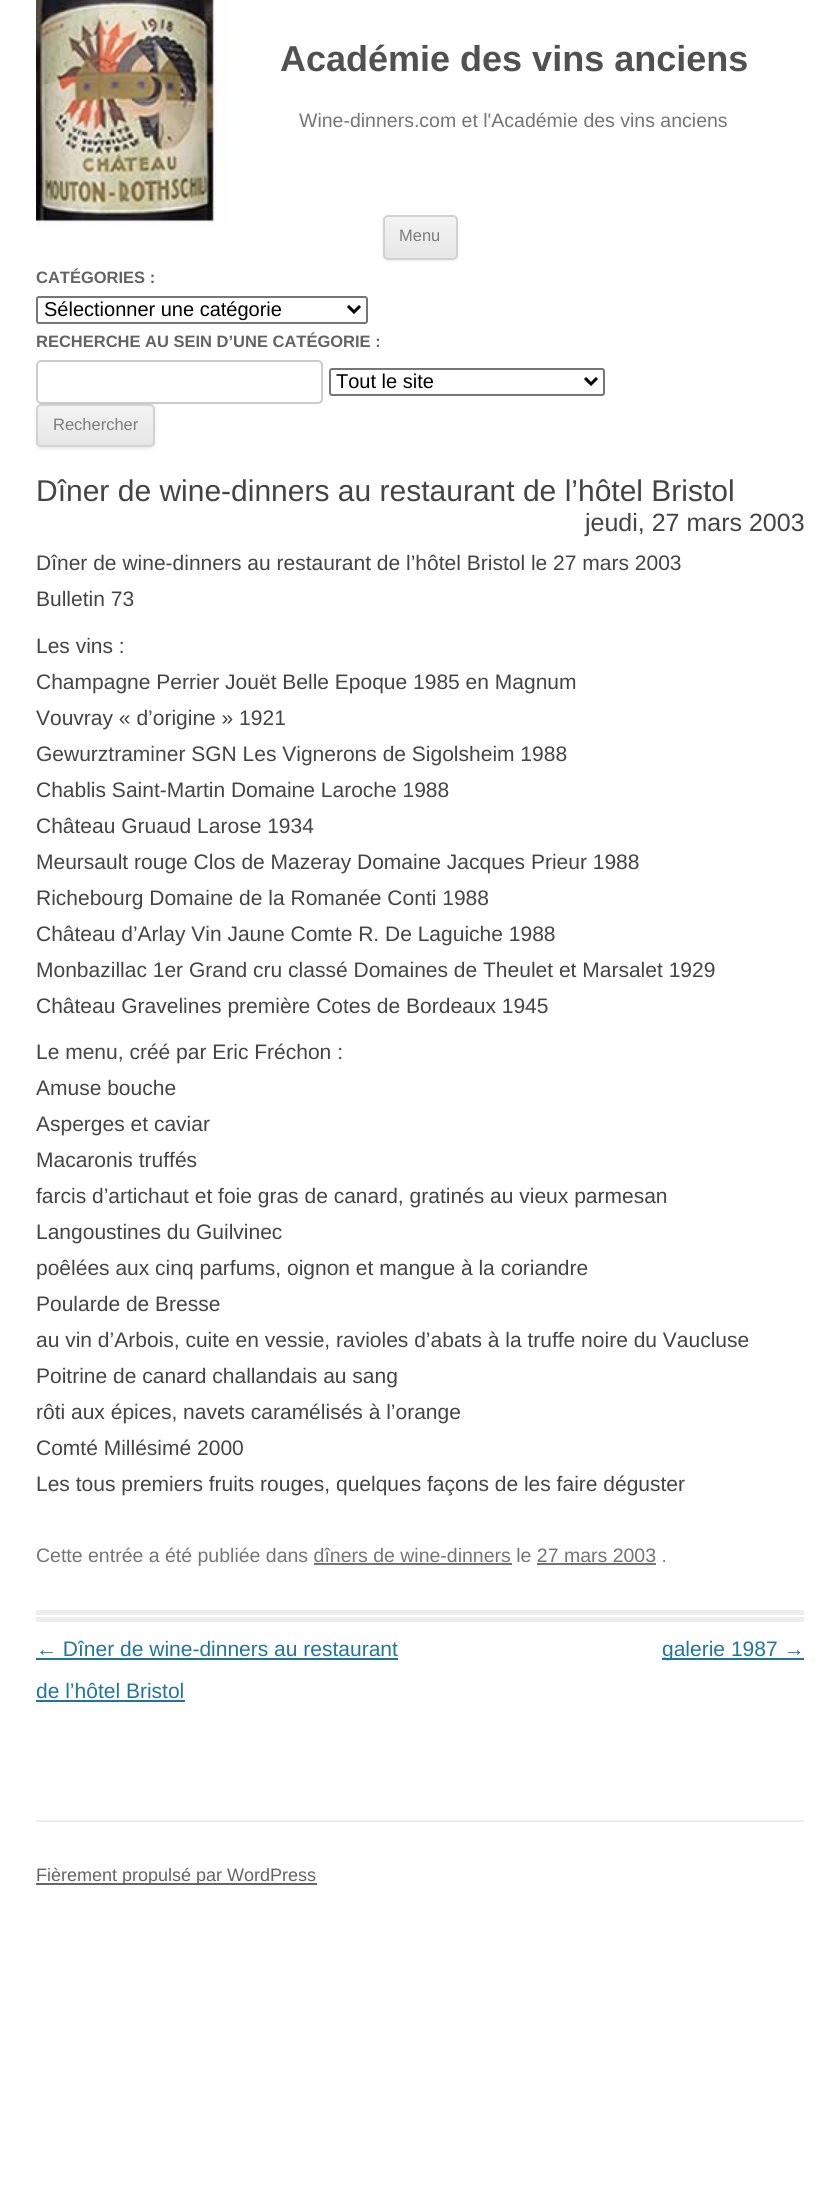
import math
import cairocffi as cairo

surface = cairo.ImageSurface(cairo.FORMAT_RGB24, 839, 2204)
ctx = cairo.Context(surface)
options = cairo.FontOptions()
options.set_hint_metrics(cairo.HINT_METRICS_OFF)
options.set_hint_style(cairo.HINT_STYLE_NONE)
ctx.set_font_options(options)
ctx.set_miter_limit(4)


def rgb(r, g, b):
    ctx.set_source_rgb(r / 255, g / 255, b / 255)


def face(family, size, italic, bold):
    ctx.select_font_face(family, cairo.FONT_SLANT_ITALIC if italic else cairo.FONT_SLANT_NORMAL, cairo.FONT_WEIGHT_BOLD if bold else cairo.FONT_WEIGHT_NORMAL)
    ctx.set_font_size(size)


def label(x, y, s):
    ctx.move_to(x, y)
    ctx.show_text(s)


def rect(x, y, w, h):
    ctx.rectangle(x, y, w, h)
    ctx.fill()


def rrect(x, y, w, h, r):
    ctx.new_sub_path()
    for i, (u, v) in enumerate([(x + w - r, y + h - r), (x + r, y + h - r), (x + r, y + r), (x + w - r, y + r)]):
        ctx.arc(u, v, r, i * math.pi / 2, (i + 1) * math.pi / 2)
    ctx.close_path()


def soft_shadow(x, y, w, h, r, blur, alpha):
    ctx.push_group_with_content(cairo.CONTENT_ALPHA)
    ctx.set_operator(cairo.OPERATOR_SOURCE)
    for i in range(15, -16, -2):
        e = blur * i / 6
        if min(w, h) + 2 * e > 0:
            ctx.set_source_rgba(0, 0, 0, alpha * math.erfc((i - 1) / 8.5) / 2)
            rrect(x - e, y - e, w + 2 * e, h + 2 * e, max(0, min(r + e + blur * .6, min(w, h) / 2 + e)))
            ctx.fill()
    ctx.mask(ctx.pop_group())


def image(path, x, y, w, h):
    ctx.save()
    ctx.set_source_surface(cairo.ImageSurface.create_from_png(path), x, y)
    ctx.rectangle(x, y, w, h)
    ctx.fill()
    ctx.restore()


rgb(255, 255, 255)
ctx.paint()
image('image0.png', 36, 0, 192, 228)
face('Liberation Sans', 36, 0, 1)
rgb(81, 81, 81)
label(280, 71, 'Académie des vins anciens')
face('Liberation Sans', 19.5, 0, 0)
rgb(117, 117, 117)
label(299, 127, 'Wine-dinners.com et l\'Académie des vins anciens')
rgb(64, 64, 64)
soft_shadow(383, 216, 75, 45, 5, 1.5, 0.1)
ctx.save()
rrect(383, 215, 75, 45, 5)
ctx.clip()
gradient = cairo.LinearGradient(420, 216, 420, 258)
gradient.add_color_stop_rgba(0, 0.957, 0.957, 0.957, 1)
gradient.add_color_stop_rgba(1, 0.902, 0.902, 0.902, 1)
ctx.set_source(gradient)
rect(383, 216, 75, 42)
ctx.restore()
rrect(384, 216, 73, 43, 4)
rgb(210, 210, 210)
ctx.stroke()
face('Liberation Sans', 16.5, 0, 0)
rgb(124, 124, 124)
label(399, 241, 'Menu')
face('Liberation Sans', 16.5, 0, 1)
rgb(99, 99, 99)
label(36, 283, 'CATÉGORIES :')
rrect(37, 297, 330, 26, 2)
rgb(118, 118, 118)
ctx.stroke()
ctx.new_path()
ctx.move_to(348, 306)
ctx.line_to(354, 312)
ctx.line_to(360, 306)
rgb(0, 0, 0)
ctx.set_line_width(3)
ctx.stroke()
face('Liberation Sans', 20, 0, 0)
label(44, 316, 'Sélectionner une catégorie')
face('Liberation Sans', 16.5, 0, 1)
rgb(99, 99, 99)
label(36, 347, 'RECHERCHE AU SEIN D’UNE CATÉGORIE :')
rrect(37, 361, 285, 42, 4)
rgb(204, 204, 204)
ctx.set_line_width(2)
ctx.stroke()
rrect(330, 369, 274, 26, 2)
rgb(118, 118, 118)
ctx.stroke()
ctx.new_path()
ctx.move_to(585, 378)
ctx.line_to(591, 384)
ctx.line_to(597, 378)
rgb(0, 0, 0)
ctx.set_line_width(3)
ctx.stroke()
face('Liberation Sans', 20, 0, 0)
label(336, 388, 'Tout le site')
rgb(64, 64, 64)
soft_shadow(36, 405, 119, 44, 5, 1.5, 0.1)
ctx.save()
rrect(36, 404, 119, 43, 5)
ctx.clip()
gradient = cairo.LinearGradient(95, 405, 95, 446)
gradient.add_color_stop_rgba(0, 0.957, 0.957, 0.957, 1)
gradient.add_color_stop_rgba(1, 0.902, 0.902, 0.902, 1)
ctx.set_source(gradient)
rect(36, 405, 119, 41)
ctx.restore()
rrect(37, 405, 117, 41, 4)
rgb(210, 210, 210)
ctx.set_line_width(2)
ctx.stroke()
face('Liberation Sans', 16.5, 0, 0)
rgb(124, 124, 124)
label(53, 430, 'Rechercher')
rgb(237, 237, 237)
rect(36, 1610, 768, 5)
rect(36, 1617, 768, 5)
face('Liberation Sans', 30, 0, 0)
rgb(68, 68, 68)
label(36, 501, 'Dîner de wine-dinners au restaurant de l’hôtel Bristol')
face('Liberation Sans', 25, 0, 0)
label(585, 531, 'jeudi, 27 mars 2003')
face('Liberation Sans', 21, 0, 0)
label(36, 570, 'Dîner de wine-dinners au restaurant de l’hôtel Bristol le 27 mars 2003')
label(36, 606, 'Bulletin 73')
label(36, 653, 'Les vins :')
label(36, 689, 'Champagne Perrier Jouët Belle Epoque 1985 en Magnum')
label(36, 725, 'Vouvray « d’origine » 1921')
label(36, 761, 'Gewurztraminer SGN Les Vignerons de Sigolsheim 1988')
label(36, 797, 'Chablis Saint-Martin Domaine Laroche 1988')
label(36, 833, 'Château Gruaud Larose 1934')
label(36, 869, 'Meursault rouge Clos de Mazeray Domaine Jacques Prieur 1988')
label(36, 905, 'Richebourg Domaine de la Romanée Conti 1988')
label(36, 941, 'Château d’Arlay Vin Jaune Comte R. De Laguiche 1988')
label(36, 977, 'Monbazillac 1er Grand cru classé Domaines de Theulet et Marsalet 1929')
label(36, 1013, 'Château Gravelines première Cotes de Bordeaux 1945')
label(36, 1059, 'Le menu, créé par Eric Fréchon :')
label(36, 1095, 'Amuse bouche')
label(36, 1131, 'Asperges et caviar')
label(36, 1167, 'Macaronis truffés')
label(36, 1203, 'farcis d’artichaut et foie gras de canard, gratinés au vieux parmesan')
label(36, 1239, 'Langoustines du Guilvinec')
label(36, 1275, 'poêlées aux cinq parfums, oignon et mangue à la coriandre')
label(36, 1311, 'Poularde de Bresse')
label(36, 1347, 'au vin d’Arbois, cuite en vessie, ravioles d’abats à la truffe noire du Vaucluse')
label(36, 1383, 'Poitrine de canard challandais au sang')
label(36, 1419, 'rôti aux épices, navets caramélisés à l’orange')
label(36, 1455, 'Comté Millésimé 2000')
label(36, 1491, 'Les tous premiers fruits rouges, quelques façons de les faire déguster')
face('Liberation Sans', 19.5, 0, 0)
rgb(117, 117, 117)
label(36, 1562, 'Cette entrée a été publiée dans dîners de wine-dinners le 27 mars 2003 .')
rect(314, 1563, 198, 2)
rect(537, 1563, 119, 2)
face('Liberation Sans', 21, 0, 0)
rgb(33, 117, 155)
label(36, 1656, '← Dîner de wine-dinners au restaurant')
rect(36, 1658, 362, 2)
label(36, 1698, 'de l’hôtel Bristol')
rect(36, 1700, 149, 2)
rect(662, 1658, 142, 2)
label(662, 1656, 'galerie 1987 →')
rgb(237, 237, 237)
rect(36, 1820, 768, 2)
rgb(104, 104, 104)
rect(36, 1883, 281, 2)
face('Liberation Sans', 18, 0, 0)
rgb(99, 99, 99)
label(36, 1881, 'Fièrement propulsé par WordPress')
surface.write_to_png('render.png')
